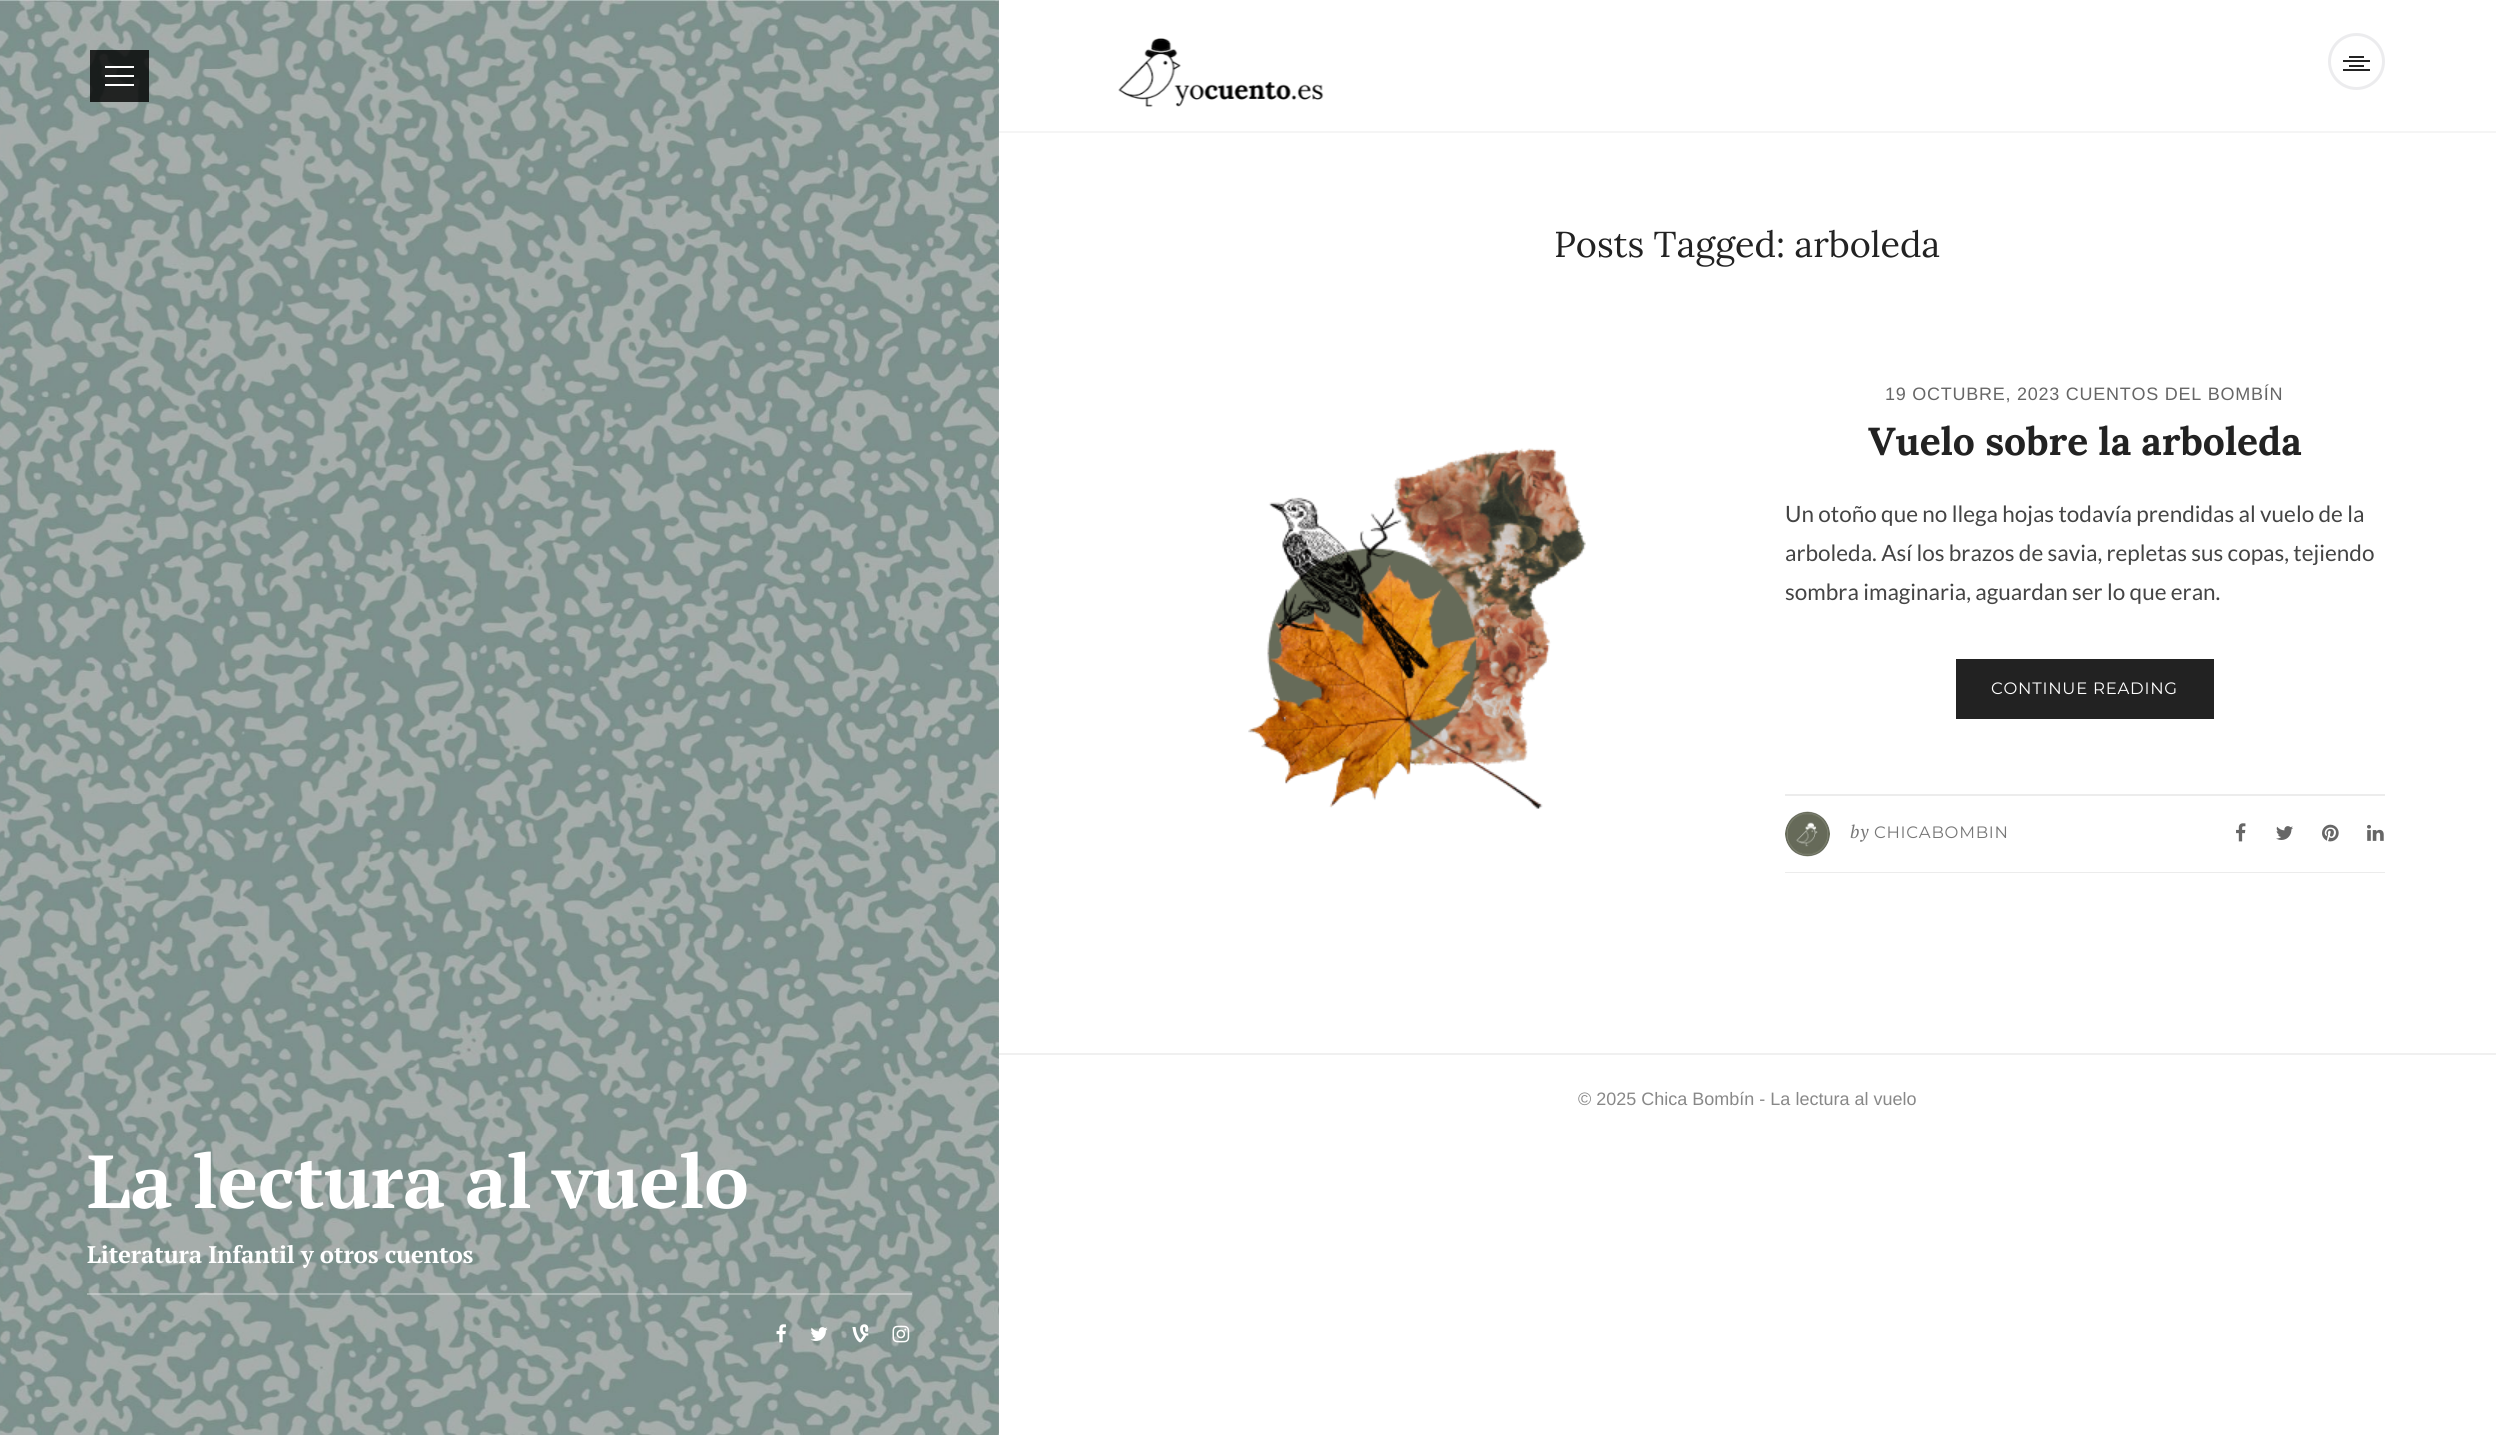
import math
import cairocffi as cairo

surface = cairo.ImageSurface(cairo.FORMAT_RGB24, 2496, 1435)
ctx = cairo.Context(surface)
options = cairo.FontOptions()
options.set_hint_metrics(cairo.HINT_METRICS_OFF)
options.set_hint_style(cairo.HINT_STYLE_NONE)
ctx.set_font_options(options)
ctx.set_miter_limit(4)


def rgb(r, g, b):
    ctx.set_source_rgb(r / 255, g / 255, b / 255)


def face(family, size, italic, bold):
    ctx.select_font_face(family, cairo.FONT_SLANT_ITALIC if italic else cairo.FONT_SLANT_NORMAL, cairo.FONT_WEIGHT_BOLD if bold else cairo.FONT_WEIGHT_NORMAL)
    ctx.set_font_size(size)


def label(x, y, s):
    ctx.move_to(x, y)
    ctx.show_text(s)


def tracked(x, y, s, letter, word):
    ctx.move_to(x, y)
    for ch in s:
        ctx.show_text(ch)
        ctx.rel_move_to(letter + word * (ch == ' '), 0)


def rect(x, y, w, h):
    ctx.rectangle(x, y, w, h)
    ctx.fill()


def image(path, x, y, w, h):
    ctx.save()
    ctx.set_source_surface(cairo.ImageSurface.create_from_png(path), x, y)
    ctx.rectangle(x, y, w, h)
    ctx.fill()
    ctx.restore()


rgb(255, 255, 255)
ctx.paint()
face('Lora', 36, 0, 0)
rgb(34, 34, 34)
label(1554, 257, 'Posts Tagged: arboleda')
image('image0.png', 1248, 448, 338, 361)
face('Liberation Sans', 18, 0, 0)
rgb(102, 102, 102)
tracked(1885, 400, '19 OCTUBRE, 2023 CUENTOS DEL BOMBÍN', 0.75, 0)
face('Lora', 39, 0, 1)
rgb(34, 34, 34)
label(1868, 455, 'Vuelo sobre la arboleda')
face('Lato', 22.5, 0, 0)
rgb(68, 68, 68)
label(1785, 522, 'Un otoño que no llega hojas todavía prendidas al vuelo de la')
label(1785, 561, 'arboleda. Así los brazos de savia, repletas sus copas, tejiendo')
label(1785, 600, 'sombra imaginaria, aguardan ser lo que eran.')
rgb(34, 34, 34)
rect(1956, 659, 258, 60)
face('Montserrat', 16.5, 0, 0)
rgb(255, 255, 255)
tracked(1991, 694, 'CONTINUE READING', 0.75, 0)
rgb(236, 236, 236)
rect(1785, 794, 600, 2)
rect(1785, 872, 600, 1)
image('image1.png', 1785, 811, 45, 46)
face('PT Serif', 18, 1, 0)
rgb(119, 119, 119)
tracked(1850, 838, 'by', 0.75, 0)
face('Montserrat', 16.5, 0, 0)
tracked(1874, 838, 'CHICABOMBIN', 0.75, 0)
image('image2.png', 2236, 823, 10, 19)
image('image3.png', 2276, 826, 17, 14)
image('image4.png', 2322, 824, 17, 18)
image('image5.png', 2367, 824, 17, 17)
rgb(240, 240, 240)
rect(999, 1053, 1497, 2)
face('Liberation Sans', 18, 0, 0)
rgb(136, 136, 136)
label(1578, 1105, '© 2025 Chica Bombín - La lectura al vuelo')
rgb(245, 245, 245)
rect(999, 131, 1497, 2)
image('image6.png', 1118, 38, 206, 69)
ctx.arc(2356.5, 61.5, 27, 0, 2 * math.pi)
rgb(236, 236, 238)
ctx.set_line_width(3)
ctx.stroke()
rgb(35, 35, 35)
rect(2349, 56, 15, 2)
rect(2343, 60, 27, 2)
rect(2349, 65, 15, 2)
rect(2343, 69, 27, 2)
image('image7.png', 0, 0, 999, 1435)
ctx.set_source_rgba(0, 0, 0, 0.8)
rect(90, 50, 59, 52)
rgb(255, 255, 255)
rect(105, 66, 29, 2)
rect(105, 75, 29, 2)
rect(105, 84, 29, 2)
face('PT Serif', 75, 0, 1)
label(87, 1208, 'La lectura al vuelo')
face('PT Serif', 24, 0, 1)
tracked(87, 1263, 'Literatura Infantil y otros cuentos', -0.15, 0)
ctx.set_source_rgba(1, 1, 1, 0.3)
rect(87, 1293, 825, 2)
image('image8.png', 776, 1324, 10, 19)
image('image9.png', 810, 1327, 18, 14)
image('image10.png', 852, 1324, 17, 19)
image('image11.png', 892, 1325, 18, 18)
surface.write_to_png('render.png')
